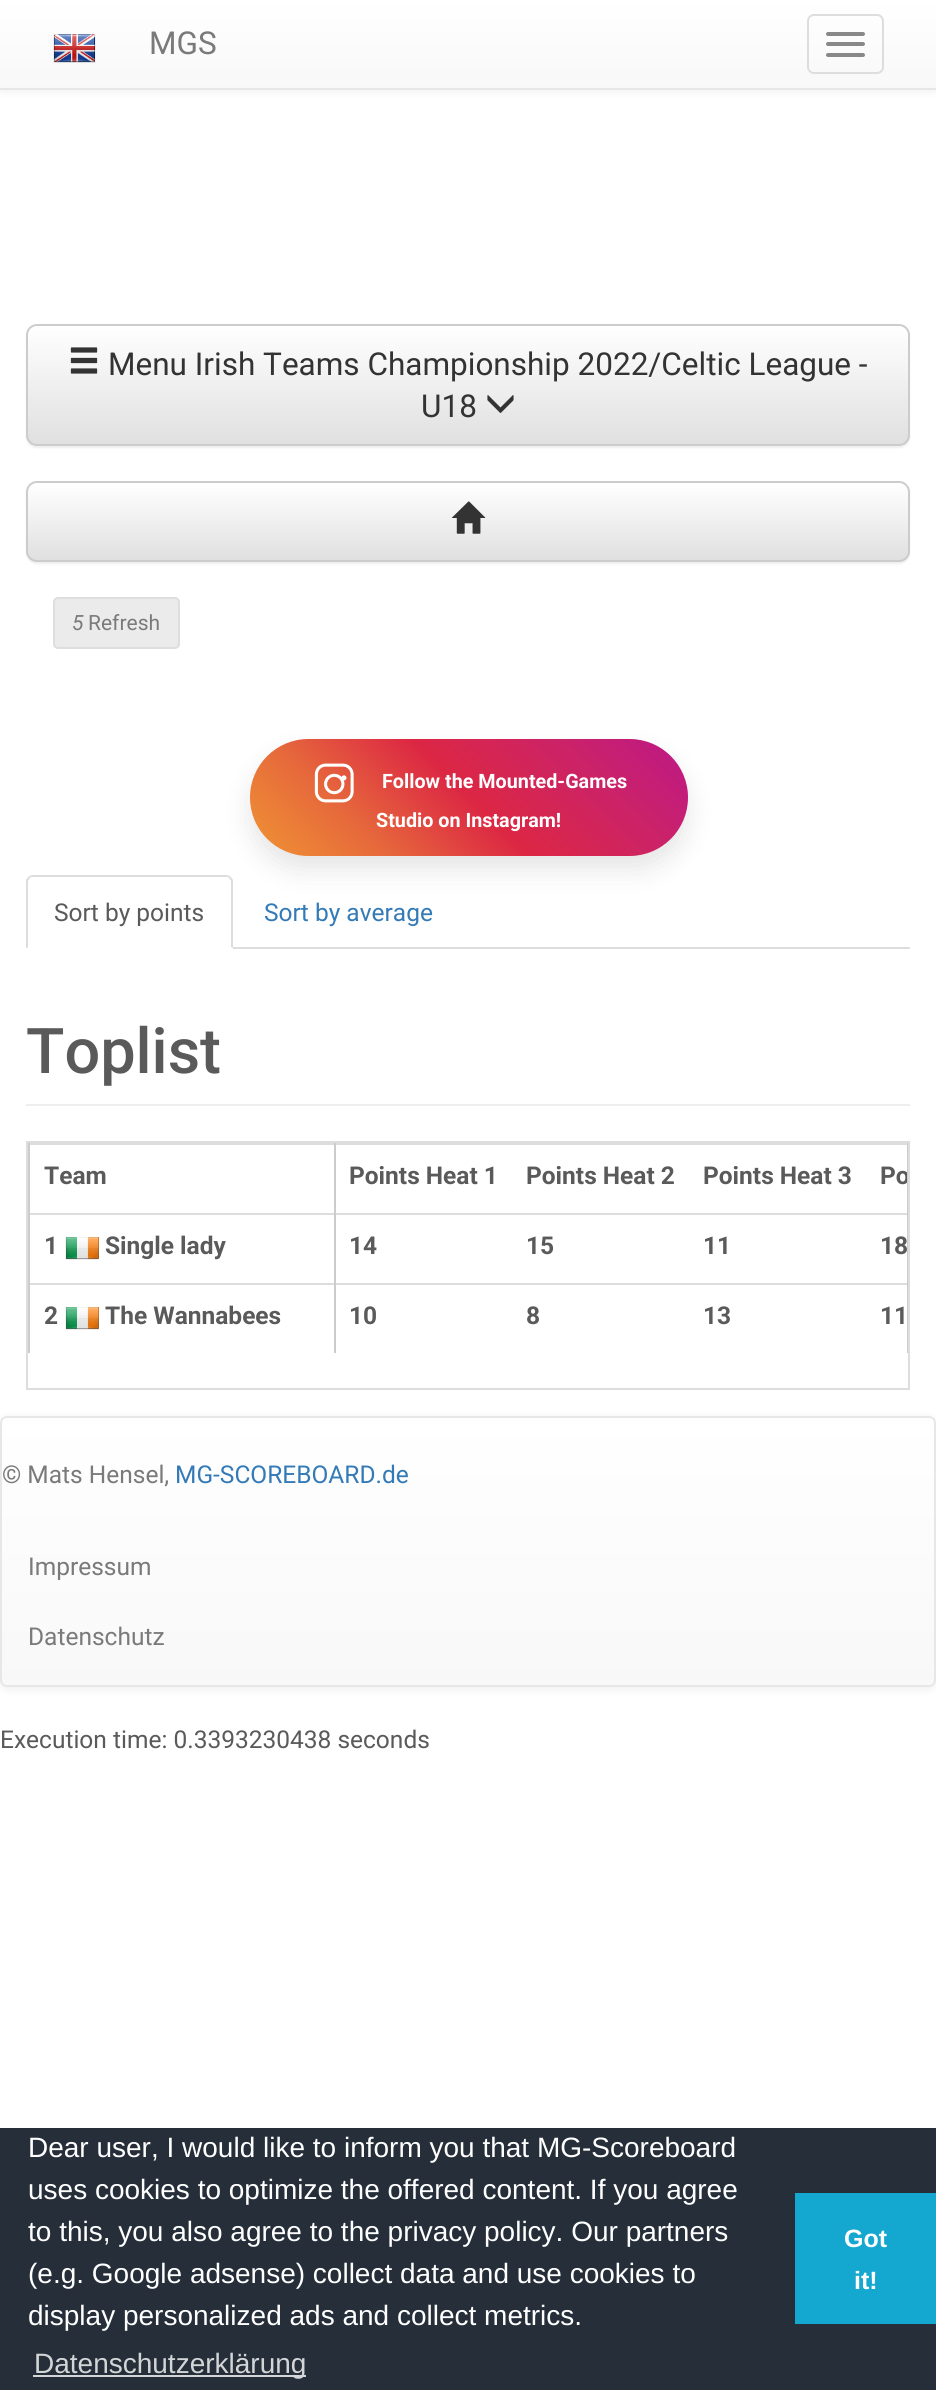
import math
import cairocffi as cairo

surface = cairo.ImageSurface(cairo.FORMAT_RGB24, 936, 2390)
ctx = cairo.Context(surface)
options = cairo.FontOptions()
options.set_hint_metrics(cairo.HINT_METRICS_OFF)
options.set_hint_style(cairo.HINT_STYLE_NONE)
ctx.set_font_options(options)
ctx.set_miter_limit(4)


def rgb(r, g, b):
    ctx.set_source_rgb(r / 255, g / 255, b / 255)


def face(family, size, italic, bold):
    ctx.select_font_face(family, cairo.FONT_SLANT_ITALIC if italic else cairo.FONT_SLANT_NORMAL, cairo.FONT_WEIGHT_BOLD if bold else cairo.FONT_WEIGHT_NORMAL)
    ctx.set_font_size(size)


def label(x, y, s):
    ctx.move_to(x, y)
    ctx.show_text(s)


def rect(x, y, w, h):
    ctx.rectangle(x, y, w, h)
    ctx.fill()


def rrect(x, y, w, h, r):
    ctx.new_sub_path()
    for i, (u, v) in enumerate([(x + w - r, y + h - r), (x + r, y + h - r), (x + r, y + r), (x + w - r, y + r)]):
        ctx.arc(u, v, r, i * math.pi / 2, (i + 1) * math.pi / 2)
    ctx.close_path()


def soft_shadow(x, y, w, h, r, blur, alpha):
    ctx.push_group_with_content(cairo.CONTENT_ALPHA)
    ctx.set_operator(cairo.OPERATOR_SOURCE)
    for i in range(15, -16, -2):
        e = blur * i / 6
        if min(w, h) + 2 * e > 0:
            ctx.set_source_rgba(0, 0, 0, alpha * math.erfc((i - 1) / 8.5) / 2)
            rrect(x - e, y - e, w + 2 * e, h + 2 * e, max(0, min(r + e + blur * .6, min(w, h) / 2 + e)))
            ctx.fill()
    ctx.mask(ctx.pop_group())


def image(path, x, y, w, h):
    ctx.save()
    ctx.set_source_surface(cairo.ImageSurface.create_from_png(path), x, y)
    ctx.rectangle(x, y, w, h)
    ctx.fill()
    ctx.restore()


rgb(255, 255, 255)
ctx.paint()
rgb(0, 0, 0)
soft_shadow(0, 2, 936, 89, 0, 4.5, 0.07)
gradient = cairo.LinearGradient(468, 0, 468, 88)
gradient.add_color_stop_rgba(0, 1, 1, 1, 1)
gradient.add_color_stop_rgba(1, 0.973, 0.973, 0.973, 1)
ctx.set_source(gradient)
rect(0, 0, 936, 88)
rgb(231, 231, 231)
rect(0, 88, 936, 2)
image('image0.png', 53, 34, 43, 29)
face('Roboto', 31.5, 0, 0)
rgb(122, 122, 122)
label(149, 54, 'MGS')
rrect(808, 15, 75, 58, 6)
rgb(221, 221, 221)
ctx.stroke()
rgb(136, 136, 136)
rrect(826, 32, 39, 4, 2)
ctx.fill()
rrect(826, 42, 39, 4, 2)
ctx.fill()
rrect(826, 53, 39, 4, 2)
ctx.fill()
rgb(0, 0, 0)
soft_shadow(26, 326, 884, 122, 11, 1, 0.07)
ctx.save()
rrect(26, 324, 884, 122, 11)
ctx.clip()
gradient = cairo.LinearGradient(468, 325, 468, 445)
gradient.add_color_stop_rgba(0, 1, 1, 1, 1)
gradient.add_color_stop_rgba(1, 0.878, 0.878, 0.878, 1)
ctx.set_source(gradient)
rect(26, 326, 884, 119)
ctx.restore()
rrect(27, 325, 882, 120, 10)
rgb(204, 204, 204)
ctx.stroke()
image('image1.png', 70, 347, 28, 27)
rgb(51, 51, 51)
label(108, 375, 'Menu Irish Teams Championship 2022/Celtic League -')
label(421, 417, 'U18')
image('image2.png', 487, 395, 27, 18)
rgb(0, 0, 0)
soft_shadow(26, 483, 884, 81, 11, 1, 0.07)
ctx.save()
rrect(26, 481, 884, 81, 11)
ctx.clip()
gradient = cairo.LinearGradient(468, 483, 468, 560)
gradient.add_color_stop_rgba(0, 1, 1, 1, 1)
gradient.add_color_stop_rgba(1, 0.878, 0.878, 0.878, 1)
ctx.set_source(gradient)
rect(26, 483, 884, 77)
ctx.restore()
rrect(27, 482, 882, 79, 10)
rgb(204, 204, 204)
ctx.stroke()
image('image3.png', 452, 501, 34, 33)
rgb(235, 235, 235)
rrect(54, 598, 125, 50, 4)
ctx.fill_preserve()
rgb(222, 222, 222)
ctx.stroke()
face('Roboto', 21, 1, 0)
rgb(122, 122, 122)
label(72, 630, '5')
face('Roboto', 21, 0, 0)
label(88, 630, 'Refresh')
rgb(0, 0, 0)
soft_shadow(250, 753, 438, 117, 58.5, 13, 0.1)
gradient = cairo.LinearGradient(330, 936, 608, 658)
gradient.add_color_stop_rgba(0, 0.941, 0.58, 0.2, 1)
gradient.add_color_stop_rgba(0.25, 0.902, 0.408, 0.235, 1)
gradient.add_color_stop_rgba(0.5, 0.863, 0.153, 0.263, 1)
gradient.add_color_stop_rgba(0.75, 0.8, 0.137, 0.4, 1)
gradient.add_color_stop_rgba(1, 0.737, 0.094, 0.533, 1)
ctx.set_source(gradient)
rrect(250, 739, 438, 117, 58.5)
ctx.fill()
image('image4.png', 314, 763, 40, 40)
face('Roboto', 19.75, 0, 1)
rgb(255, 255, 255)
label(382, 788, 'Follow the Mounted-Games')
label(376, 827, 'Studio on Instagram!')
rgb(221, 221, 221)
rect(233, 947, 677, 2)
ctx.new_path()
ctx.move_to(33, 875)
ctx.curve_to(31, 875, 29, 876, 28, 877)
ctx.line_to(30, 878)
ctx.curve_to(30, 877, 32, 877, 33, 877)
ctx.line_to(226, 877)
ctx.curve_to(227, 877, 229, 877, 229, 878)
ctx.line_to(231, 877)
ctx.curve_to(230, 876, 228, 875, 226, 875)
ctx.close_path()
ctx.fill()
ctx.new_path()
ctx.move_to(233, 948)
ctx.line_to(231, 947)
ctx.line_to(231, 881)
ctx.line_to(229, 878)
ctx.line_to(231, 877)
ctx.line_to(233, 880)
ctx.close_path()
ctx.fill()
ctx.new_path()
ctx.move_to(26, 880)
ctx.line_to(28, 877)
ctx.line_to(30, 878)
ctx.line_to(28, 881)
ctx.line_to(28, 947)
ctx.line_to(27, 948)
ctx.line_to(26, 948)
ctx.close_path()
ctx.fill()
face('Roboto', 24.5, 0, 0)
rgb(90, 90, 90)
label(54, 921, 'Sort by points')
rgb(51, 122, 183)
label(264, 921, 'Sort by average')
rgb(238, 238, 238)
rect(26, 1104, 884, 2)
face('Roboto Medium', 63, 0, 0)
rgb(90, 90, 90)
label(26, 1073, 'Toplist')
ctx.rectangle(27, 1142, 882, 247)
rgb(221, 221, 221)
ctx.stroke()
rgb(204, 204, 204)
rect(907, 1143, 1, 210)
rect(334, 1143, 2, 210)
rect(28, 1143, 2, 210)
rgb(221, 221, 221)
rect(30, 1143, 304, 2)
face('Roboto', 24.5, 0, 1)
rgb(90, 90, 90)
label(44, 1184, 'Team')
rgb(221, 221, 221)
rect(30, 1213, 304, 2)
rgb(90, 90, 90)
label(44, 1254, '1')
image('image5.png', 65, 1237, 34, 23)
label(105, 1254, 'Single lady')
rgb(221, 221, 221)
rect(30, 1283, 304, 2)
rgb(90, 90, 90)
label(44, 1324, '2')
image('image5.png', 65, 1307, 34, 23)
label(105, 1324, 'The Wannabees')
label(349, 1184, 'Points Heat 1')
label(526, 1184, 'Points Heat 2')
label(703, 1184, 'Points Heat 3')
rgb(221, 221, 221)
rect(336, 1143, 571, 2)
ctx.save()
ctx.rectangle(866, 1145, 41, 68)
ctx.clip()
rgb(90, 90, 90)
label(880, 1184, 'Po')
ctx.restore()
rgb(90, 90, 90)
label(349, 1254, '14')
label(526, 1254, '15')
label(703, 1254, '11')
rgb(221, 221, 221)
rect(336, 1213, 571, 2)
rgb(90, 90, 90)
label(880, 1254, '18')
label(349, 1324, '10')
label(526, 1324, '8')
label(703, 1324, '13')
rgb(221, 221, 221)
rect(336, 1283, 571, 2)
rgb(90, 90, 90)
label(880, 1324, '11')
rgb(0, 0, 0)
soft_shadow(0, 1418, 936, 271, 7, 4.5, 0.07)
ctx.save()
rrect(0, 1416, 936, 271, 7)
ctx.clip()
gradient = cairo.LinearGradient(468, 1418, 468, 1685)
gradient.add_color_stop_rgba(0, 1, 1, 1, 1)
gradient.add_color_stop_rgba(1, 0.973, 0.973, 0.973, 1)
ctx.set_source(gradient)
rect(0, 1418, 936, 267)
ctx.restore()
rrect(1, 1417, 934, 269, 6)
rgb(231, 231, 231)
ctx.stroke()
face('Roboto', 24.5, 0, 0)
rgb(122, 122, 122)
label(2, 1483, '© Mats Hensel,')
rgb(51, 122, 183)
label(175, 1483, 'MG-SCOREBOARD.de')
rgb(122, 122, 122)
label(28, 1575, 'Impressum')
label(28, 1645, 'Datenschutz')
rgb(90, 90, 90)
label(0, 1748, 'Execution time: 0.3393230438 seconds')
rgb(37, 46, 57)
rect(0, 2128, 936, 262)
face('Liberation Sans', 28, 0, 0)
rgb(255, 255, 255)
label(28, 2157, 'Dear user, I would like to inform you that MG-Scoreboard')
label(28, 2199, 'uses cookies to optimize the offered content. If you agree')
label(28, 2241, 'to this, you also agree to the privacy policy. Our partners')
label(28, 2283, '(e.g. Google adsense) collect data and use cookies to')
label(28, 2325, 'display personalized ads and collect metrics.')
rgb(211, 213, 215)
rect(33, 2375, 273, 2)
label(34, 2373, 'Datenschutzerklärung')
rgb(20, 167, 208)
rect(795, 2193, 141, 131)
face('Liberation Sans', 25, 0, 1)
rgb(255, 255, 255)
label(844, 2247, 'Got')
label(854, 2289, 'it!')
surface.write_to_png('render.png')
